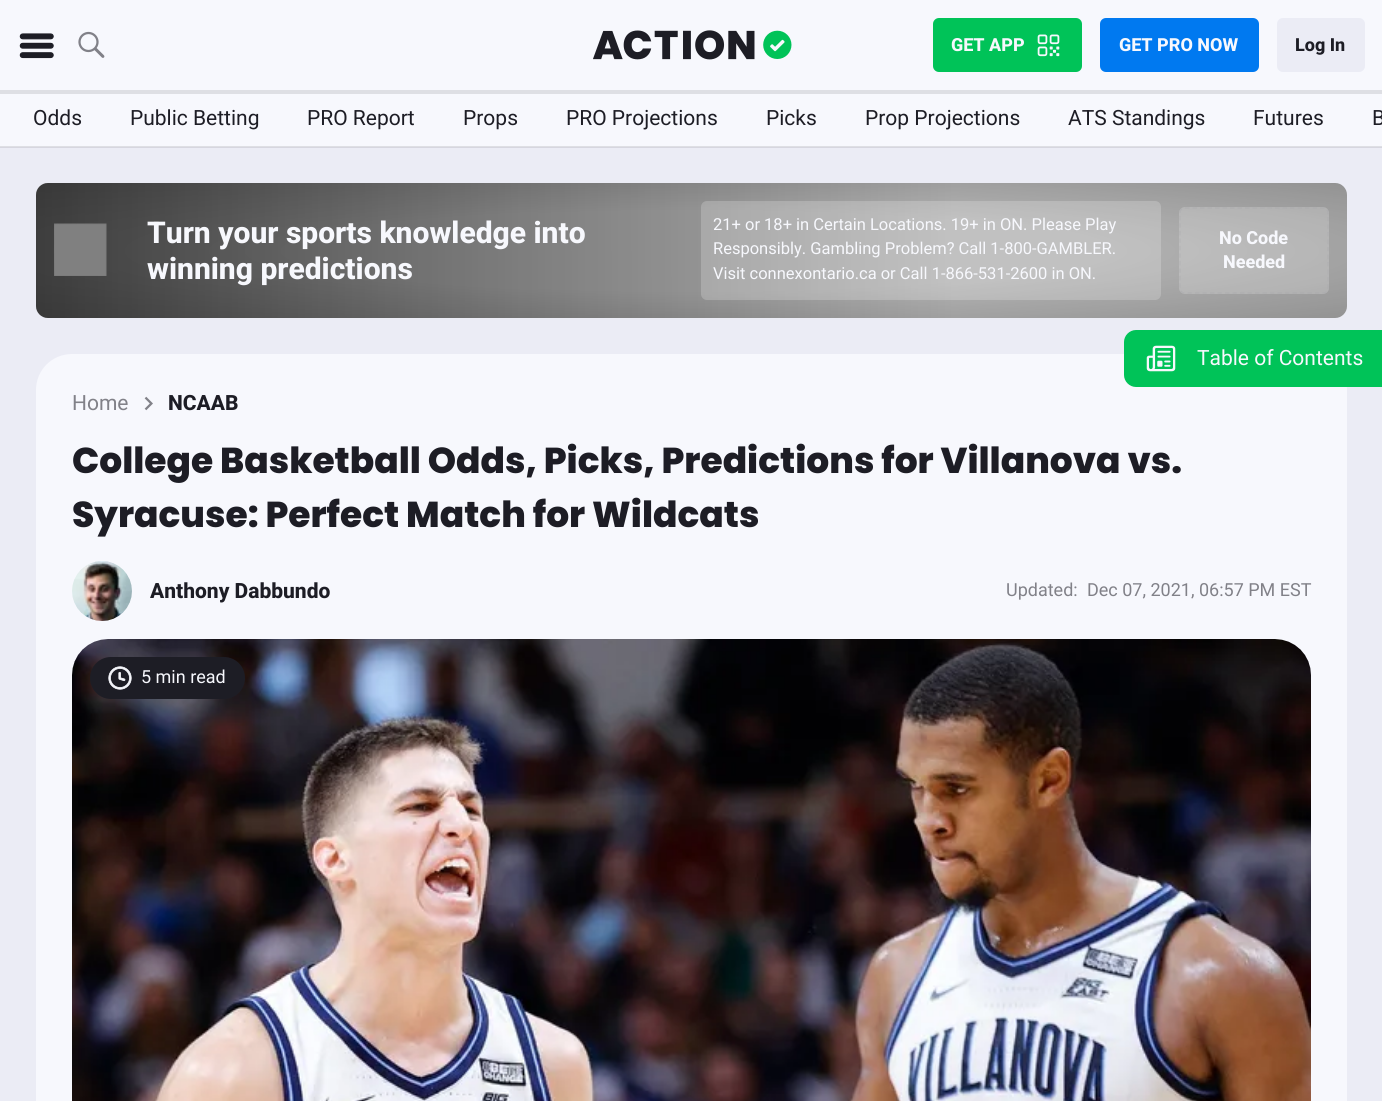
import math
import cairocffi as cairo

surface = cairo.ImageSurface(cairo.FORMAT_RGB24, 1382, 1101)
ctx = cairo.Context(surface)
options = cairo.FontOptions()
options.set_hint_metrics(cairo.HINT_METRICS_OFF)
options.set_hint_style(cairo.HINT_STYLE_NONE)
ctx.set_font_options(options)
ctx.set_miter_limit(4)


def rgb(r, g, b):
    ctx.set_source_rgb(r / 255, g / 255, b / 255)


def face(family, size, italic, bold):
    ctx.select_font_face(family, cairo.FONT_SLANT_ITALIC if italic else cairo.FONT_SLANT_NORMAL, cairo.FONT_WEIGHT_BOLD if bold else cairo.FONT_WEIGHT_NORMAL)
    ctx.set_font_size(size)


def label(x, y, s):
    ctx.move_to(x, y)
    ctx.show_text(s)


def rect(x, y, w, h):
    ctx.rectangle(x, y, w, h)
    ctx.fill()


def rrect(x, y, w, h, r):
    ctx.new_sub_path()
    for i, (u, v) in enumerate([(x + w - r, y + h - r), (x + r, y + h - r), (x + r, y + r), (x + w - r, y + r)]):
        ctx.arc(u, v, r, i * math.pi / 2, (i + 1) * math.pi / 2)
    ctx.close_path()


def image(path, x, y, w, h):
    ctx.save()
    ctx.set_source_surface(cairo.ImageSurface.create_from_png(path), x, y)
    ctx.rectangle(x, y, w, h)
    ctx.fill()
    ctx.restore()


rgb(235, 236, 245)
ctx.paint()
rgb(214, 214, 223)
rect(0, 147, 1382, 1)
rgb(247, 248, 253)
rect(0, 0, 1382, 146)
rgb(222, 223, 228)
rect(0, 146, 1382, 1)
rect(0, 90, 1382, 4)
image('image0.png', 19, 33, 35, 26)
image('image1.png', 78, 31, 27, 27)
image('image2.png', 593, 30, 199, 30)
rgb(0, 195, 88)
rrect(933, 18, 149, 54, 6)
ctx.fill()
face('Roboto ExtraBold', 18, 0, 0)
rgb(247, 248, 253)
label(951, 51, 'GET APP')
image('image3.png', 1037, 34, 23, 23)
rgb(0, 121, 240)
rrect(1100, 18, 159, 54, 6)
ctx.fill()
rgb(247, 248, 253)
label(1119, 51, 'GET PRO NOW')
rgb(235, 236, 245)
rrect(1277, 18, 88, 54, 6)
ctx.fill()
rgb(29, 29, 37)
label(1295, 51, 'Log In')
face('Roboto', 21, 0, 0)
label(33, 125, 'Odds')
label(130, 125, 'Public Betting')
label(307, 125, 'PRO Report')
label(463, 125, 'Props')
label(566, 125, 'PRO Projections')
label(766, 125, 'Picks')
label(865, 125, 'Prop Projections')
label(1068, 125, 'ATS Standings')
label(1253, 125, 'Futures')
label(1372, 125, 'B')
rgb(204, 204, 204)
rrect(36, 183, 1311, 135, 12)
ctx.fill()
gradient = cairo.LinearGradient(36, 251, 1347, 250)
gradient.add_color_stop_rgba(0, 0, 0, 0, 0.67)
gradient.add_color_stop_rgba(0.7, 0, 0, 0, 0.13)
ctx.set_source(gradient)
rrect(36, 183, 1311, 135, 12)
ctx.fill()
gradient = cairo.RadialGradient(0, 0, 0, 0, 0, 1)
gradient.set_matrix(cairo.Matrix(1 / 1311, 0, 0, 1 / 135, -1 * 692 / 1311, -1 * 251 / 135))
gradient.add_color_stop_rgba(0, 1, 1, 1, 0)
gradient.add_color_stop_rgba(0.3, 0, 0, 0, 0)
gradient.add_color_stop_rgba(1, 0, 0, 0, 0.3)
ctx.set_source(gradient)
rrect(36, 183, 1311, 135, 12)
ctx.fill()
image('image4.png', 54, 223, 53, 53)
face('Roboto ExtraBold', 30, 0, 0)
rgb(247, 248, 253)
label(147, 243, 'Turn your sports knowledge into')
label(147, 279, 'winning predictions')
ctx.set_source_rgba(1, 1, 1, 0.2)
rrect(701, 201, 460, 99, 6)
ctx.fill()
face('Roboto', 16.5, 0, 0)
rgb(247, 248, 253)
label(713, 230, '21+ or 18+ in Certain Locations. 19+ in ON. Please Play')
label(713, 254, 'Responsibly. Gambling Problem? Call 1-800-GAMBLER.')
label(713, 279, 'Visit connexontario.ca or Call 1-866-531-2600 in ON.')
ctx.set_source_rgba(1, 1, 1, 0.2)
rrect(1179, 207, 150, 87, 6)
ctx.fill()
ctx.new_path()
ctx.move_to(1185, 208)
ctx.line_to(1323, 208)
ctx.curve_to(1326, 208, 1328, 210, 1328, 213)
ctx.line_to(1328, 288)
ctx.curve_to(1328, 291, 1326, 293, 1323, 293)
ctx.line_to(1185, 293)
ctx.curve_to(1182, 293, 1180, 291, 1180, 288)
ctx.line_to(1180, 213)
ctx.curve_to(1180, 210, 1182, 208, 1185, 208)
ctx.close_path()
ctx.set_source_rgba(0.643, 0.643, 0.667, 0.3)
ctx.set_line_width(1.5)
ctx.set_dash([4.5, 3])
ctx.stroke()
face('Roboto ExtraBold', 18, 0, 0)
rgb(247, 248, 253)
label(1219, 244, 'No Code')
label(1223, 268, 'Needed')
ctx.new_path()
ctx.move_to(72, 354)
ctx.line_to(1311, 354)
ctx.curve_to(1331, 354, 1347, 370, 1347, 390)
ctx.line_to(1347, 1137)
ctx.line_to(36, 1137)
ctx.line_to(36, 390)
ctx.curve_to(36, 370, 52, 354, 72, 354)
ctx.close_path()
ctx.fill()
rgb(0, 195, 88)
ctx.new_path()
ctx.move_to(1136, 330)
ctx.line_to(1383, 330)
ctx.line_to(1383, 387)
ctx.line_to(1136, 387)
ctx.curve_to(1129.5, 387, 1124, 381.5, 1124, 375)
ctx.line_to(1124, 342)
ctx.curve_to(1124, 335.5, 1129.5, 330, 1136, 330)
ctx.close_path()
ctx.fill()
image('image5.png', 1146, 345, 30, 27)
face('Roboto', 21, 0, 0)
rgb(247, 248, 253)
label(1197, 365, 'Table of Contents')
rgb(129, 129, 136)
label(72, 410, 'Home')
image('image6.png', 144, 396, 9, 15)
face('Roboto ExtraBold', 21, 0, 0)
rgb(29, 29, 37)
label(168, 410, 'NCAAB')
face('Poppins ExtraBold', 36, 0, 0)
label(72, 473, 'College Basketball Odds, Picks, Predictions for Villanova vs.')
label(72, 527, 'Syracuse: Perfect Match for Wildcats')
image('image7.png', 72, 561, 60, 60)
face('Roboto ExtraBold', 21, 0, 0)
label(150, 598, 'Anthony Dabbundo')
face('Roboto', 18, 0, 0)
rgb(129, 129, 136)
label(1006, 596, 'Updated:')
label(1087, 596, 'Dec 07, 2021, 06:57 PM EST')
image('image8.png', 72, 639, 1239, 462)
rgb(29, 29, 37)
rrect(90, 657, 155, 42, 21)
ctx.fill()
image('image9.png', 108, 666, 24, 24)
rgb(247, 248, 253)
label(141, 683, '5 min read')
surface.write_to_png('render.png')
